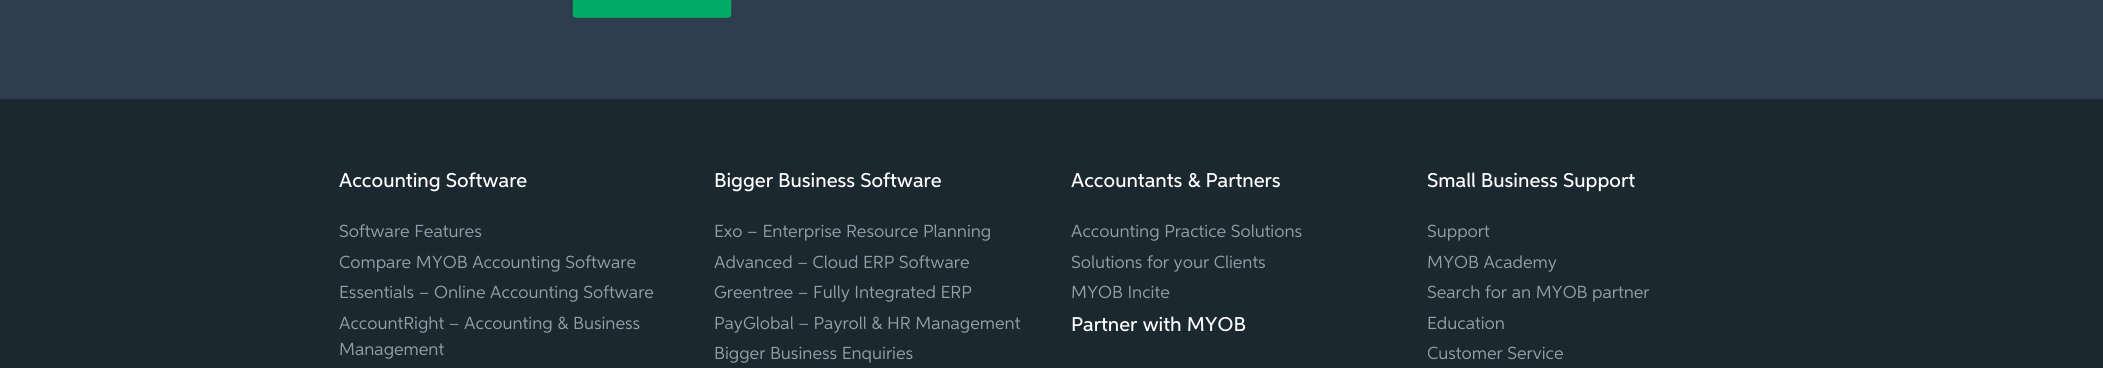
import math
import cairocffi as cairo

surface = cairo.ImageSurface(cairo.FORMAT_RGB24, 2103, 368)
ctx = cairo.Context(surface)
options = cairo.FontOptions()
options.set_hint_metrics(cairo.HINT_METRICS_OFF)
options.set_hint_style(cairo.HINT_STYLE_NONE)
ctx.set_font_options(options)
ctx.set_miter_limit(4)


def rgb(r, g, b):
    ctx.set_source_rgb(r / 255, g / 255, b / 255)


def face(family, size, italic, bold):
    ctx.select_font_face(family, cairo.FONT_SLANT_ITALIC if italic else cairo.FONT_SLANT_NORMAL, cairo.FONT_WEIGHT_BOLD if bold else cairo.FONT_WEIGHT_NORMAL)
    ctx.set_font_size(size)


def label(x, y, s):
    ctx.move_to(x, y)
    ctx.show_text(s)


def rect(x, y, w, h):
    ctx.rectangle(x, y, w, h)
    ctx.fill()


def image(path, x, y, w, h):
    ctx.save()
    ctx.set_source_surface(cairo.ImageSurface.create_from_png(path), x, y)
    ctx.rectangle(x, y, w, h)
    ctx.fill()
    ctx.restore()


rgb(46, 62, 79)
ctx.paint()
image('image0.png', 572, 0, 160, 18)
rgb(27, 40, 48)
rect(0, 99, 2103, 269)
face('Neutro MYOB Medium', 20, 0, 0)
rgb(255, 255, 255)
label(339, 187, 'Accounting Software')
face('Neutro MYOB', 17.5, 0, 0)
rgb(150, 158, 167)
label(339, 237, 'Software Features')
label(339, 268, 'Compare MYOB Accounting Software')
label(339, 298, 'Essentials – Online Accounting Software')
label(339, 329, 'AccountRight – Accounting & Business')
label(339, 355, 'Management')
face('Neutro MYOB Medium', 20, 0, 0)
rgb(255, 255, 255)
label(714, 187, 'Bigger Business Software')
face('Neutro MYOB', 17.5, 0, 0)
rgb(150, 158, 167)
label(714, 237, 'Exo – Enterprise Resource Planning')
label(714, 268, 'Advanced – Cloud ERP Software')
label(714, 298, 'Greentree – Fully Integrated ERP')
label(714, 329, 'PayGlobal – Payroll & HR Management')
label(714, 359, 'Bigger Business Enquiries')
face('Neutro MYOB Medium', 20, 0, 0)
rgb(255, 255, 255)
label(1071, 187, 'Accountants & Partners')
face('Neutro MYOB', 17.5, 0, 0)
rgb(150, 158, 167)
label(1071, 237, 'Accounting Practice Solutions')
label(1071, 268, 'Solutions for your Clients')
label(1071, 298, 'MYOB Incite')
face('Neutro MYOB Medium', 20, 0, 0)
rgb(255, 255, 255)
label(1071, 331, 'Partner with MYOB')
label(1427, 187, 'Small Business Support')
ctx.save()
ctx.rectangle(1428, 218, 337, 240)
ctx.clip()
face('Neutro MYOB', 17.5, 0, 0)
rgb(150, 158, 167)
label(1427, 237, 'Support')
ctx.restore()
face('Neutro MYOB', 17.5, 0, 0)
rgb(150, 158, 167)
label(1427, 268, 'MYOB Academy')
ctx.save()
ctx.rectangle(1428, 218, 337, 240)
ctx.clip()
label(1427, 298, 'Search for an MYOB partner')
ctx.restore()
label(1427, 329, 'Education')
ctx.save()
ctx.rectangle(1428, 218, 337, 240)
ctx.clip()
label(1427, 359, 'Customer Service')
ctx.restore()
surface.write_to_png('render.png')
